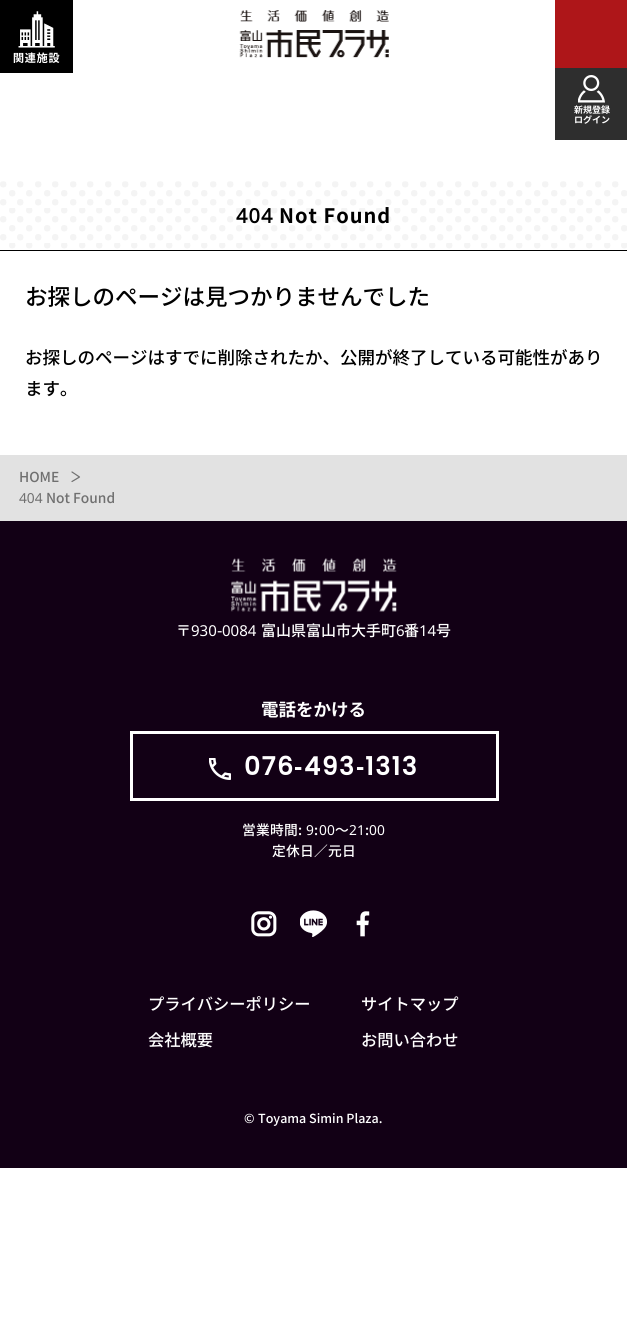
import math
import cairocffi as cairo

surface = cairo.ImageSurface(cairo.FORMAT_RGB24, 627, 1329)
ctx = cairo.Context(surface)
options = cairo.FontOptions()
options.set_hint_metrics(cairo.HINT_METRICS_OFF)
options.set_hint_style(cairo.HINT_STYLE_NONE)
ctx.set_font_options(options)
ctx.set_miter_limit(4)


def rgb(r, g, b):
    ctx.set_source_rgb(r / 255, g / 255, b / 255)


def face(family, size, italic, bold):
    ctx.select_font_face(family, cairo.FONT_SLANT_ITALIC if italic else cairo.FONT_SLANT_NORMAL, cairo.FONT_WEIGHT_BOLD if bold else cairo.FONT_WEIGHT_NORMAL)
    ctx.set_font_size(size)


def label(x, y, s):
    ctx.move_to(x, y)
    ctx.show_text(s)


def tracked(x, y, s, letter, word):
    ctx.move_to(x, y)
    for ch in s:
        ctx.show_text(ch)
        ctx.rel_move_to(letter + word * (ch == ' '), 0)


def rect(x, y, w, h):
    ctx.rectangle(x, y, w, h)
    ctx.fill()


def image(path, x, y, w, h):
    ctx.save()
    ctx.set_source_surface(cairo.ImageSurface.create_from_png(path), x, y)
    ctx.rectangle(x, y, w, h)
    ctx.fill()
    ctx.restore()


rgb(255, 255, 255)
ctx.paint()
rgb(0, 0, 0)
rect(0, 0, 73, 73)
image('image0.png', 13, 11, 47, 52)
image('image1.png', 239, 10, 150, 48)
rgb(174, 22, 25)
rect(555, 0, 72, 68)
rgb(46, 46, 46)
rect(555, 68, 72, 72)
image('image2.png', 578, 75, 27, 28)
face('Noto Sans JP', 9, 0, 1)
rgb(255, 255, 255)
label(574, 113, '新規登録')
label(574, 123, 'ログイン')
image('image3.png', 0, 181, 627, 68)
rgb(0, 0, 0)
rect(0, 250, 627, 1)
face('Noto Sans', 20, 0, 1)
tracked(236, 223, '404', 1, 0)
face('Noto Sans JP', 20, 0, 1)
tracked(279, 223, 'Not Found', 1, 0)
face('Noto Sans JP Medium', 22.5, 0, 0)
label(25, 305, 'お探しのページは見つかりませんでした')
face('Noto Sans JP Medium', 17.5, 0, 0)
label(25, 364, 'お探しのページはすでに削除されたか、公開が終了している可能性があり')
label(25, 395, 'ます。')
rgb(226, 226, 226)
rect(0, 455, 627, 66)
face('Noto Sans JP Medium', 13.75, 0, 0)
rgb(112, 112, 112)
label(19, 482, 'HOME')
ctx.new_path()
ctx.move_to(72, 472)
ctx.line_to(79.5, 477)
ctx.line_to(72, 481.5)
ctx.set_line_width(1.2)
ctx.set_line_cap(cairo.LINE_CAP_ROUND)
ctx.set_line_join(cairo.LINE_JOIN_ROUND)
ctx.stroke()
face('Noto Sans', 13.75, 0, 0)
label(19, 503, '404')
face('Noto Sans JP Medium', 13.75, 0, 0)
label(46, 503, 'Not Found')
rgb(18, 0, 21)
rect(0, 521, 627, 647)
image('image4.png', 231, 558, 166, 54)
face('Noto Sans JP Medium', 15, 0, 0)
rgb(255, 255, 255)
label(176, 636, '〒')
face('Noto Sans', 15, 0, 0)
label(191, 636, '930')
face('Noto Sans JP Medium', 15, 0, 0)
label(217, 636, '-')
face('Noto Sans', 15, 0, 0)
label(222, 636, '0084')
face('Noto Sans JP Medium', 15, 0, 0)
label(261, 636, '富山県富山市大手町')
face('Noto Sans', 15, 0, 0)
label(396, 636, '6')
face('Noto Sans JP Medium', 15, 0, 0)
label(404, 636, '番')
face('Noto Sans', 15, 0, 0)
label(419, 636, '14')
face('Noto Sans JP Medium', 15, 0, 0)
label(436, 636, '号')
face('Noto Sans JP', 17.5, 0, 1)
label(261, 716, '電話をかける')
ctx.rectangle(131.5, 732.5, 366, 67)
ctx.set_line_width(3)
ctx.set_line_cap(cairo.LINE_CAP_BUTT)
ctx.set_line_join(cairo.LINE_JOIN_MITER)
ctx.stroke()
image('image5.png', 209, 758, 22, 22)
face('Poppins', 25, 0, 1)
tracked(244, 775, '076', 1.5, 0)
face('Liberation Sans', 25, 0, 1)
tracked(294, 775, '-', 1.5, 0)
face('Poppins', 25, 0, 1)
tracked(304, 775, '493', 1.5, 0)
face('Liberation Sans', 25, 0, 1)
tracked(356, 775, '-', 1.5, 0)
face('Poppins', 25, 0, 1)
tracked(365, 775, '1313', 1.5, 0)
face('Noto Sans JP Medium', 13.75, 0, 0)
tracked(242, 835, '営業時間:', 0.25, 0)
face('Noto Sans', 13.75, 0, 0)
tracked(306, 835, '9', 0.25, 0)
face('Noto Sans JP Medium', 13.75, 0, 0)
tracked(314, 835, ':', 0.25, 0)
face('Noto Sans', 13.75, 0, 0)
tracked(319, 835, '00', 0.25, 0)
face('Noto Sans JP Medium', 13.75, 0, 0)
tracked(335, 835, '〜', 0.25, 0)
face('Noto Sans', 13.75, 0, 0)
tracked(349, 835, '21', 0.25, 0)
face('Noto Sans JP Medium', 13.75, 0, 0)
tracked(365, 835, ':', 0.25, 0)
face('Noto Sans', 13.75, 0, 0)
tracked(369, 835, '00', 0.25, 0)
face('Noto Sans JP Medium', 13.75, 0, 0)
tracked(272, 856, '定休日／元日', 0.25, 0)
image('image6.png', 251, 911, 26, 26)
image('image7.png', 300, 910, 27, 27)
image('image8.png', 356, 911, 14, 26)
face('Noto Sans JP Medium', 16.25, 0, 0)
label(148, 1010, 'プライバシーポリシー')
label(361, 1010, 'サイトマップ')
label(148, 1046, '会社概要')
label(361, 1046, 'お問い合わせ')
face('Noto Sans JP Medium', 12.5, 0, 0)
label(244, 1123, '©')
label(258, 1123, 'Toyama Simin Plaza.')
surface.write_to_png('render.png')
